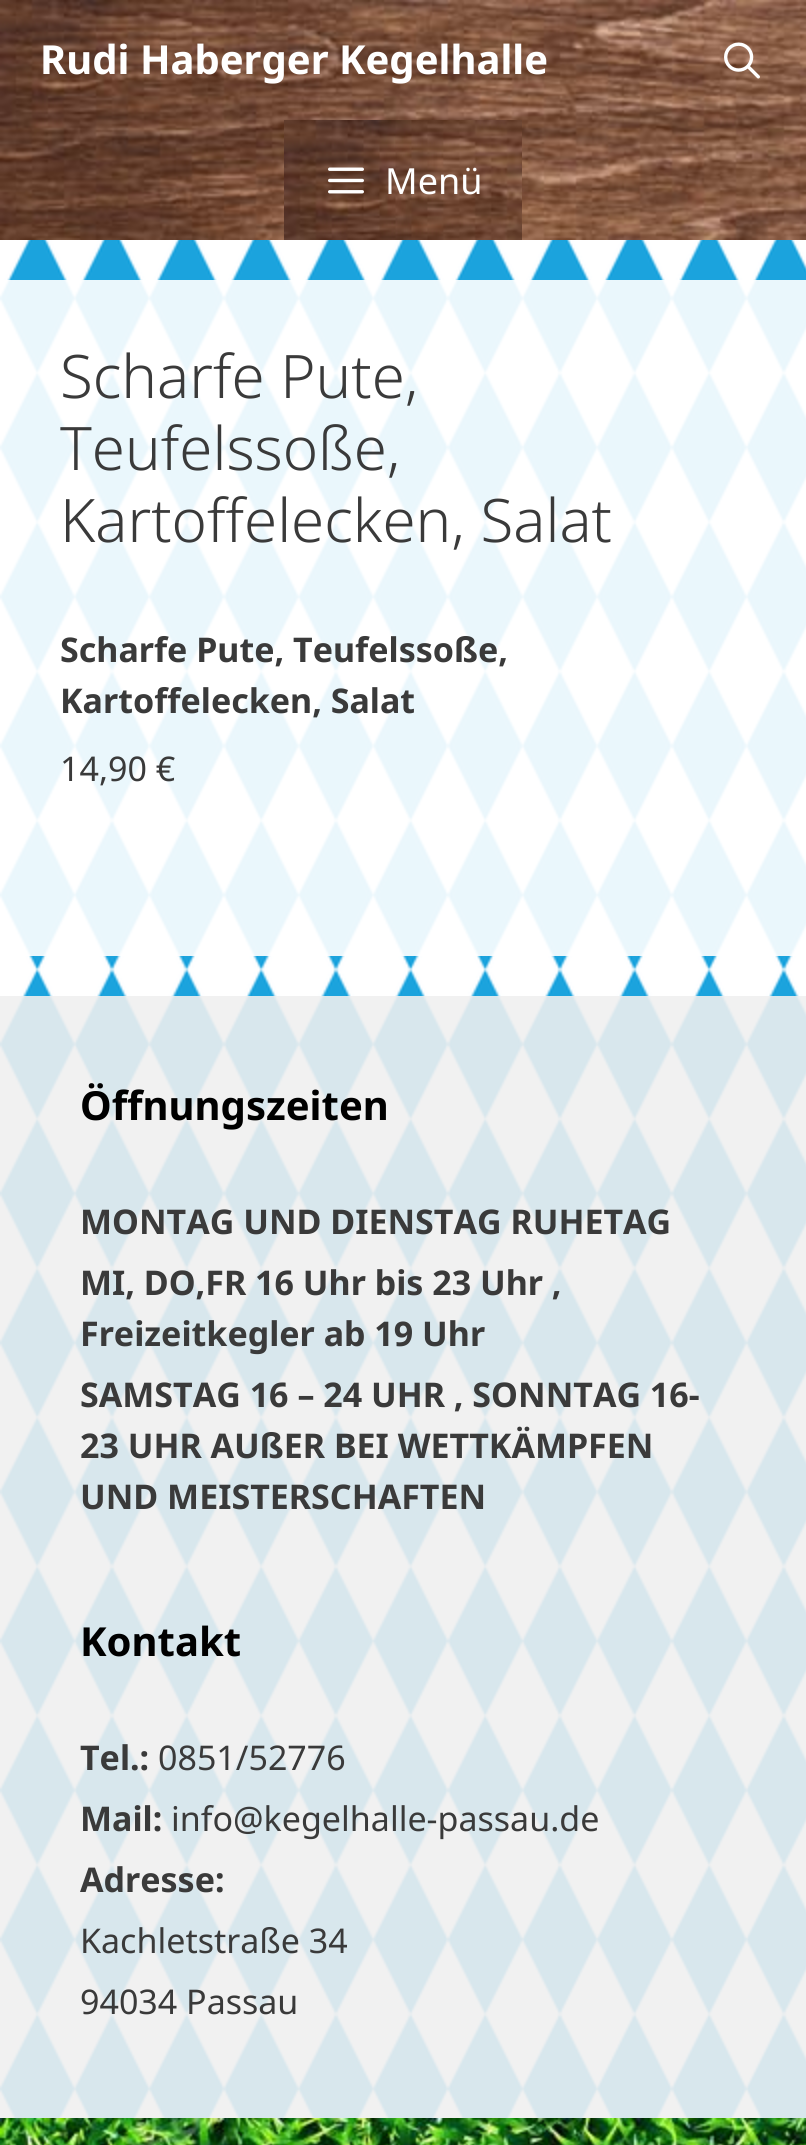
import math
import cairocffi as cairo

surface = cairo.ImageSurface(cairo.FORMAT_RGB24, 806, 2145)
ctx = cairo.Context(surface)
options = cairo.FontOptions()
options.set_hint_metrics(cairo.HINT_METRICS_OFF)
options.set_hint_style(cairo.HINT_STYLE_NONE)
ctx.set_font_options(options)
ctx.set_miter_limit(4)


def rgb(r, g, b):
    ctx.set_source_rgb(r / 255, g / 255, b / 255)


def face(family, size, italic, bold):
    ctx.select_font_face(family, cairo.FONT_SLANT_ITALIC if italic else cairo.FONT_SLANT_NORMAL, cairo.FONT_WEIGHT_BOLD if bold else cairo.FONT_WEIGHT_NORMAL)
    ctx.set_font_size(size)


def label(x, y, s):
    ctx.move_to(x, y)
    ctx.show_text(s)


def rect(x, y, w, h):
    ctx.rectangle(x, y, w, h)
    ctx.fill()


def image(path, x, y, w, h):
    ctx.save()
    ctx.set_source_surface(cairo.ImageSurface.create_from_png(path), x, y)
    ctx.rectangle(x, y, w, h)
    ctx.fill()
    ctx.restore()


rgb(255, 255, 255)
ctx.paint()
image('image0.png', 0, 240, 806, 1878)
image('image1.png', 0, 0, 806, 240)
face('Noto Sans', 40, 0, 1)
rgb(255, 255, 255)
label(40, 74, 'Rudi Haberger Kegelhalle')
image('image2.png', 724, 42, 36, 37)
image('image3.png', 284, 120, 238, 120)
image('image4.png', 328, 167, 36, 27)
face('Noto Sans', 36, 0, 0)
label(385, 194, 'Menü')
ctx.set_source_rgba(1, 1, 1, 0.91)
rect(0, 280, 806, 676)
face('Noto Sans Light', 60, 0, 0)
rgb(58, 58, 58)
label(60, 398, 'Scharfe Pute,')
label(60, 470, 'Teufelssoße,')
label(60, 542, 'Kartoffelecken, Salat')
face('Noto Sans', 34, 0, 1)
label(60, 662, 'Scharfe Pute, Teufelssoße,')
label(60, 713, 'Kartoffelecken, Salat')
face('Noto Sans', 34, 0, 0)
label(60, 781, '14,90 €')
ctx.set_source_rgba(0.937, 0.937, 0.937, 0.89)
rect(0, 996, 806, 1122)
face('Noto Sans', 40, 0, 1)
rgb(0, 0, 0)
label(80, 1120, 'Öffnungszeiten')
face('Noto Sans', 34, 0, 1)
rgb(58, 58, 58)
label(80, 1234, 'MONTAG UND DIENSTAG RUHETAG')
label(80, 1295, 'MI, DO,FR 16 Uhr bis 23 Uhr ,')
label(80, 1346, 'Freizeitkegler ab 19 Uhr')
label(80, 1407, 'SAMSTAG 16 – 24 UHR , SONNTAG 16-')
label(80, 1458, '23 UHR AUßER BEI WETTKÄMPFEN')
label(80, 1509, 'UND MEISTERSCHAFTEN')
face('Noto Sans', 40, 0, 1)
rgb(0, 0, 0)
label(80, 1656, 'Kontakt')
face('Noto Sans', 34, 0, 1)
rgb(58, 58, 58)
label(80, 1770, 'Tel.:')
face('Noto Sans', 34, 0, 0)
label(158, 1770, '0851/52776')
face('Noto Sans', 34, 0, 1)
label(80, 1831, 'Mail:')
face('Noto Sans', 34, 0, 0)
label(171, 1831, 'info@kegelhalle-passau.de')
face('Noto Sans', 34, 0, 1)
label(80, 1892, 'Adresse:')
face('Noto Sans', 34, 0, 0)
label(80, 1953, 'Kachletstraße 34')
label(80, 2014, '94034 Passau')
image('image5.png', 0, 2118, 806, 27)
surface.write_to_png('render.png')
